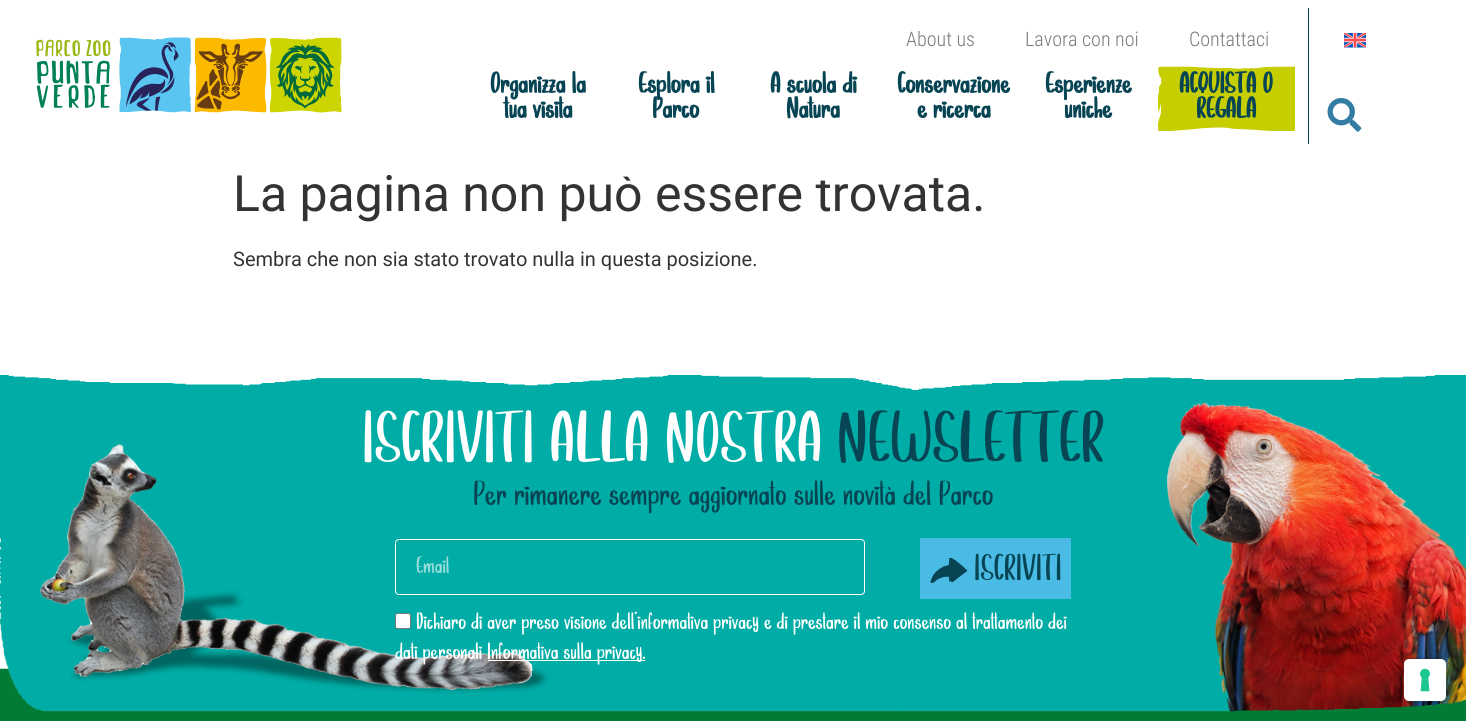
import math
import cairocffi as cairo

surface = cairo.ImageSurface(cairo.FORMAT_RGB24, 1466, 721)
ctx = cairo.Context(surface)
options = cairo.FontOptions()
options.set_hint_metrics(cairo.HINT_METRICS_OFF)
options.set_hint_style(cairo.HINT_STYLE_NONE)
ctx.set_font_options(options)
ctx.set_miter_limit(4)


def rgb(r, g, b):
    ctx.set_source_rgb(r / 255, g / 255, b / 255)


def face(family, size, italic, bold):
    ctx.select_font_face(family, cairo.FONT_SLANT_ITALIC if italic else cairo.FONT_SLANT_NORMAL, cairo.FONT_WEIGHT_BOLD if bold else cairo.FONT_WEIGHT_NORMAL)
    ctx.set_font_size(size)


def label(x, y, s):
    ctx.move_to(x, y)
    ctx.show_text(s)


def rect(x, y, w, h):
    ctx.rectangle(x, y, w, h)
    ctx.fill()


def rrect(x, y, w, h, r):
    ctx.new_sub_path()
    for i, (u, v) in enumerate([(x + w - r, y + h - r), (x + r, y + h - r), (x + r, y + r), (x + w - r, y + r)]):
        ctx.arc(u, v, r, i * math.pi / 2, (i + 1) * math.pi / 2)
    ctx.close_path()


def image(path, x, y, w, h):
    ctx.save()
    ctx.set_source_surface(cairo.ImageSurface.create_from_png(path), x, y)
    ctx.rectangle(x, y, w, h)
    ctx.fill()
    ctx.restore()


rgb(255, 255, 255)
ctx.paint()
face('Roboto', 50, 0, 0)
rgb(51, 51, 51)
label(233, 211, 'La pagina non può essere trovata.')
rgb(255, 255, 255)
ctx.new_path()
ctx.move_to(-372, 173)
ctx.line_to(-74, 177)
ctx.line_to(110, 173)
ctx.line_to(262, 167)
ctx.line_to(392, 155)
ctx.line_to(496, 175)
ctx.line_to(736, 178)
ctx.line_to(837, 181)
ctx.line_to(1119, 164)
ctx.line_to(1330, 177)
ctx.line_to(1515, 177)
ctx.line_to(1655, 163)
ctx.line_to(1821, 165)
ctx.line_to(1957, 168)
ctx.line_to(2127, 181)
ctx.line_to(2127, 0)
ctx.line_to(-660, 0)
ctx.line_to(-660, 185)
ctx.close_path()
ctx.fill()
image('image0.png', 36, 37, 306, 76)
rgb(8, 69, 84)
rect(1308, 8, 1, 136)
face('Roboto Condensed Light', 20, 0, 0)
rgb(122, 122, 122)
label(906, 46, 'About us')
label(1025, 46, 'Lavora con noi')
label(1189, 46, 'Contattaci')
face('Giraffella', 30, 0, 1)
rgb(8, 69, 84)
label(490, 93, 'Organizza la')
label(504, 118, 'tua visita')
label(638, 93, 'Esplora il')
label(652, 118, 'Parco')
label(770, 93, 'A scuola di')
label(786, 118, 'Natura')
label(897, 93, 'Conservazione')
label(917, 118, 'e ricerca')
label(1045, 93, 'Esperienze')
label(1064, 118, 'uniche')
image('image1.png', 1158, 66, 137, 65)
label(1179, 93, 'ACQUISTA O')
label(1196, 118, 'REGALA')
image('image2.png', 1344, 33, 22, 15)
image('image3.png', 1327, 98, 35, 34)
face('Roboto', 20, 0, 0)
rgb(51, 51, 51)
label(233, 266, 'Sembra che non sia stato trovato nulla in questa posizione.')
image('image6.png', 0, 668, 1466, 53)
image('image4.png', 0, 375, 1466, 337)
face('Giraffella', 73.75, 0, 0)
rgb(255, 255, 255)
label(362, 462, 'ISCRIVITI ALLA NOSTRA')
rgb(8, 69, 84)
label(837, 462, 'NEWSLETTER')
face('Giraffella', 35, 0, 0)
label(473, 505, 'Per rimanere sempre aggiornato sulle novità del Parco')
rrect(395.5, 539.5, 469, 55, 3.5)
rgb(255, 255, 255)
ctx.set_line_width(1)
ctx.stroke()
face('Giraffella', 23.75, 0, 0)
rgb(153, 222, 219)
label(416, 573, 'Email')
rgb(73, 187, 228)
rect(920, 538, 151, 61)
image('image5.png', 930, 558, 38, 25)
face('Giraffella', 37.5, 0, 0)
rgb(8, 69, 84)
label(974, 580, 'ISCRIVITI')
rgb(255, 255, 255)
rrect(395.5, 613.5, 15, 15, 2)
ctx.fill_preserve()
rgb(118, 118, 118)
ctx.stroke()
face('Giraffella', 23.75, 0, 0)
rgb(255, 255, 255)
label(416, 629, 'Dichiaro di aver preso visione dell’informativa privacy e di prestare il mio consenso al trattamento dei')
label(395, 659, 'dati personali')
rect(488, 660, 157, 1)
label(487, 659, 'Informativa sulla privacy.')
rrect(1403.5, 658.5, 44, 44, 5.5)
ctx.set_source_rgba(0, 0, 0, 0.15)
ctx.stroke()
rgb(255, 255, 255)
rrect(1404, 659, 42, 42, 5)
ctx.fill()
image('image7.png', 1420, 668, 10, 24)
surface.write_to_png('render.png')
